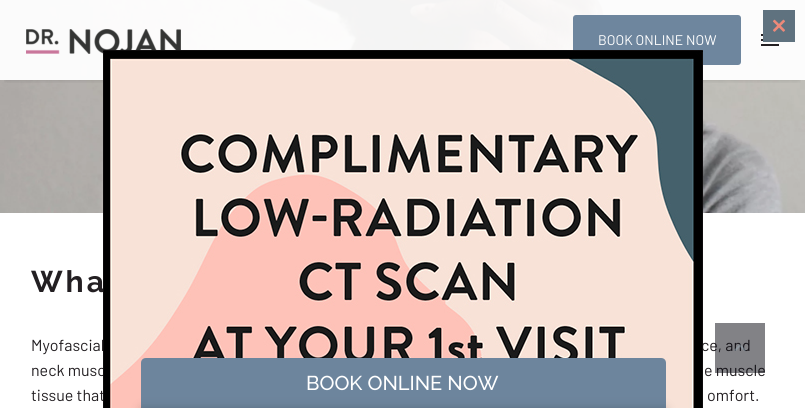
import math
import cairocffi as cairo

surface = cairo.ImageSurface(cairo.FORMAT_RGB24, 805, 408)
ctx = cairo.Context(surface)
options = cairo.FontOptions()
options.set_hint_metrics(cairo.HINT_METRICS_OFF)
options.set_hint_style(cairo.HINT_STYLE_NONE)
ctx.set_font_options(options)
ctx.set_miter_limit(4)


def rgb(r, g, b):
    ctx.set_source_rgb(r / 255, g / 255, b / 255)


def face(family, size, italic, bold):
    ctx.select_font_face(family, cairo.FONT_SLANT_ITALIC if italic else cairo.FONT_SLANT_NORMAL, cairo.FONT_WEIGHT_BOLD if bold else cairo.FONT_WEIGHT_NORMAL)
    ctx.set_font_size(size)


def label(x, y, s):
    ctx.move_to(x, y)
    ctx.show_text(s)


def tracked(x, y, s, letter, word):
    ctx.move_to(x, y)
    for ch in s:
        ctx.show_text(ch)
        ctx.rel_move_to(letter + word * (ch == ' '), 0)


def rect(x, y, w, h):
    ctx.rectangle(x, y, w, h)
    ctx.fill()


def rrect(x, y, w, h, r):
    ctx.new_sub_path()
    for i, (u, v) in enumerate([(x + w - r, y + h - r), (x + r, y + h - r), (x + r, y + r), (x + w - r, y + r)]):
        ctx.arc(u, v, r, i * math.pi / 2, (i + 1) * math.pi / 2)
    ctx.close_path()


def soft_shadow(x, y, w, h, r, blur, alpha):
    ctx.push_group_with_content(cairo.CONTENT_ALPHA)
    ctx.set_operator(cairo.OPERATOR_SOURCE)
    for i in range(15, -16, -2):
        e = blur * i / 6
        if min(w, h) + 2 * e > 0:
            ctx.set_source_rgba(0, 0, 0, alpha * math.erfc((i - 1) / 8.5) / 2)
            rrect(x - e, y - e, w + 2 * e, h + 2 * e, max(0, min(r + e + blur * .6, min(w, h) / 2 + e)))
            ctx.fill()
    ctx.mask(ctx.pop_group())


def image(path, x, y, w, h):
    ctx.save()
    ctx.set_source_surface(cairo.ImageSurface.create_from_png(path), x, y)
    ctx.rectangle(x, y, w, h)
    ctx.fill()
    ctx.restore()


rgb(255, 255, 255)
ctx.paint()
image('image3.png', 0, 0, 805, 213)
ctx.set_source_rgba(1, 1, 1, 0.95)
rect(0, 0, 805, 80)
ctx.save()
ctx.rectangle(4, 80, 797, 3)
ctx.clip()
rgb(0, 0, 0)
soft_shadow(5, 10, 795, 70, 0, 2.5, 0.15)
ctx.restore()
rgb(95, 114, 127)
rect(763, 10, 32, 32)
image('image0.png', 773, 19, 12, 13)
image('image2.png', 26, 29, 155, 25)
rgb(110, 134, 158)
rrect(573, 15, 168, 50, 3)
ctx.fill()
face('Barlow', 16, 0, 0)
rgb(35, 31, 34)
label(31, 351, 'Myofascial')
label(701, 351, 'ce, and')
label(31, 376, 'neck musc')
label(31, 401, 'tissue that')
image('image1.png', 103, 50, 600, 358)
face('Barlow', 14, 0, 0)
rgb(255, 255, 255)
label(598, 45, 'BOOK ONLINE NOW')
rgb(35, 31, 34)
rect(761, 34, 2, 2)
rect(761, 39, 2, 2)
rect(761, 44, 18, 2)
face('Raleway', 30, 0, 1)
tracked(31, 292, 'Wha', 3, 0)
face('Barlow', 16, 0, 0)
label(704, 376, 'e muscle')
label(707, 401, 'omfort.')
ctx.set_source_rgba(0.024, 0.024, 0.059, 0.5)
rect(715, 323, 50, 50)
image('image4.png', 734, 344, 12, 7)
rgb(109, 133, 157)
ctx.new_path()
ctx.move_to(146, 358)
ctx.line_to(661, 358)
ctx.curve_to(664, 358, 666, 360, 666, 363)
ctx.line_to(666, 408)
ctx.line_to(141, 408)
ctx.line_to(141, 363)
ctx.curve_to(141, 360, 143, 358, 146, 358)
ctx.close_path()
ctx.fill()
face('Raleway Thin', 20, 0, 0)
rgb(255, 255, 255)
label(306, 390, 'BOOK ONLINE NOW')
rgb(19, 19, 19)
soft_shadow(141, 408, 525, 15, 0, 5, 0.2)
surface.write_to_png('render.png')
